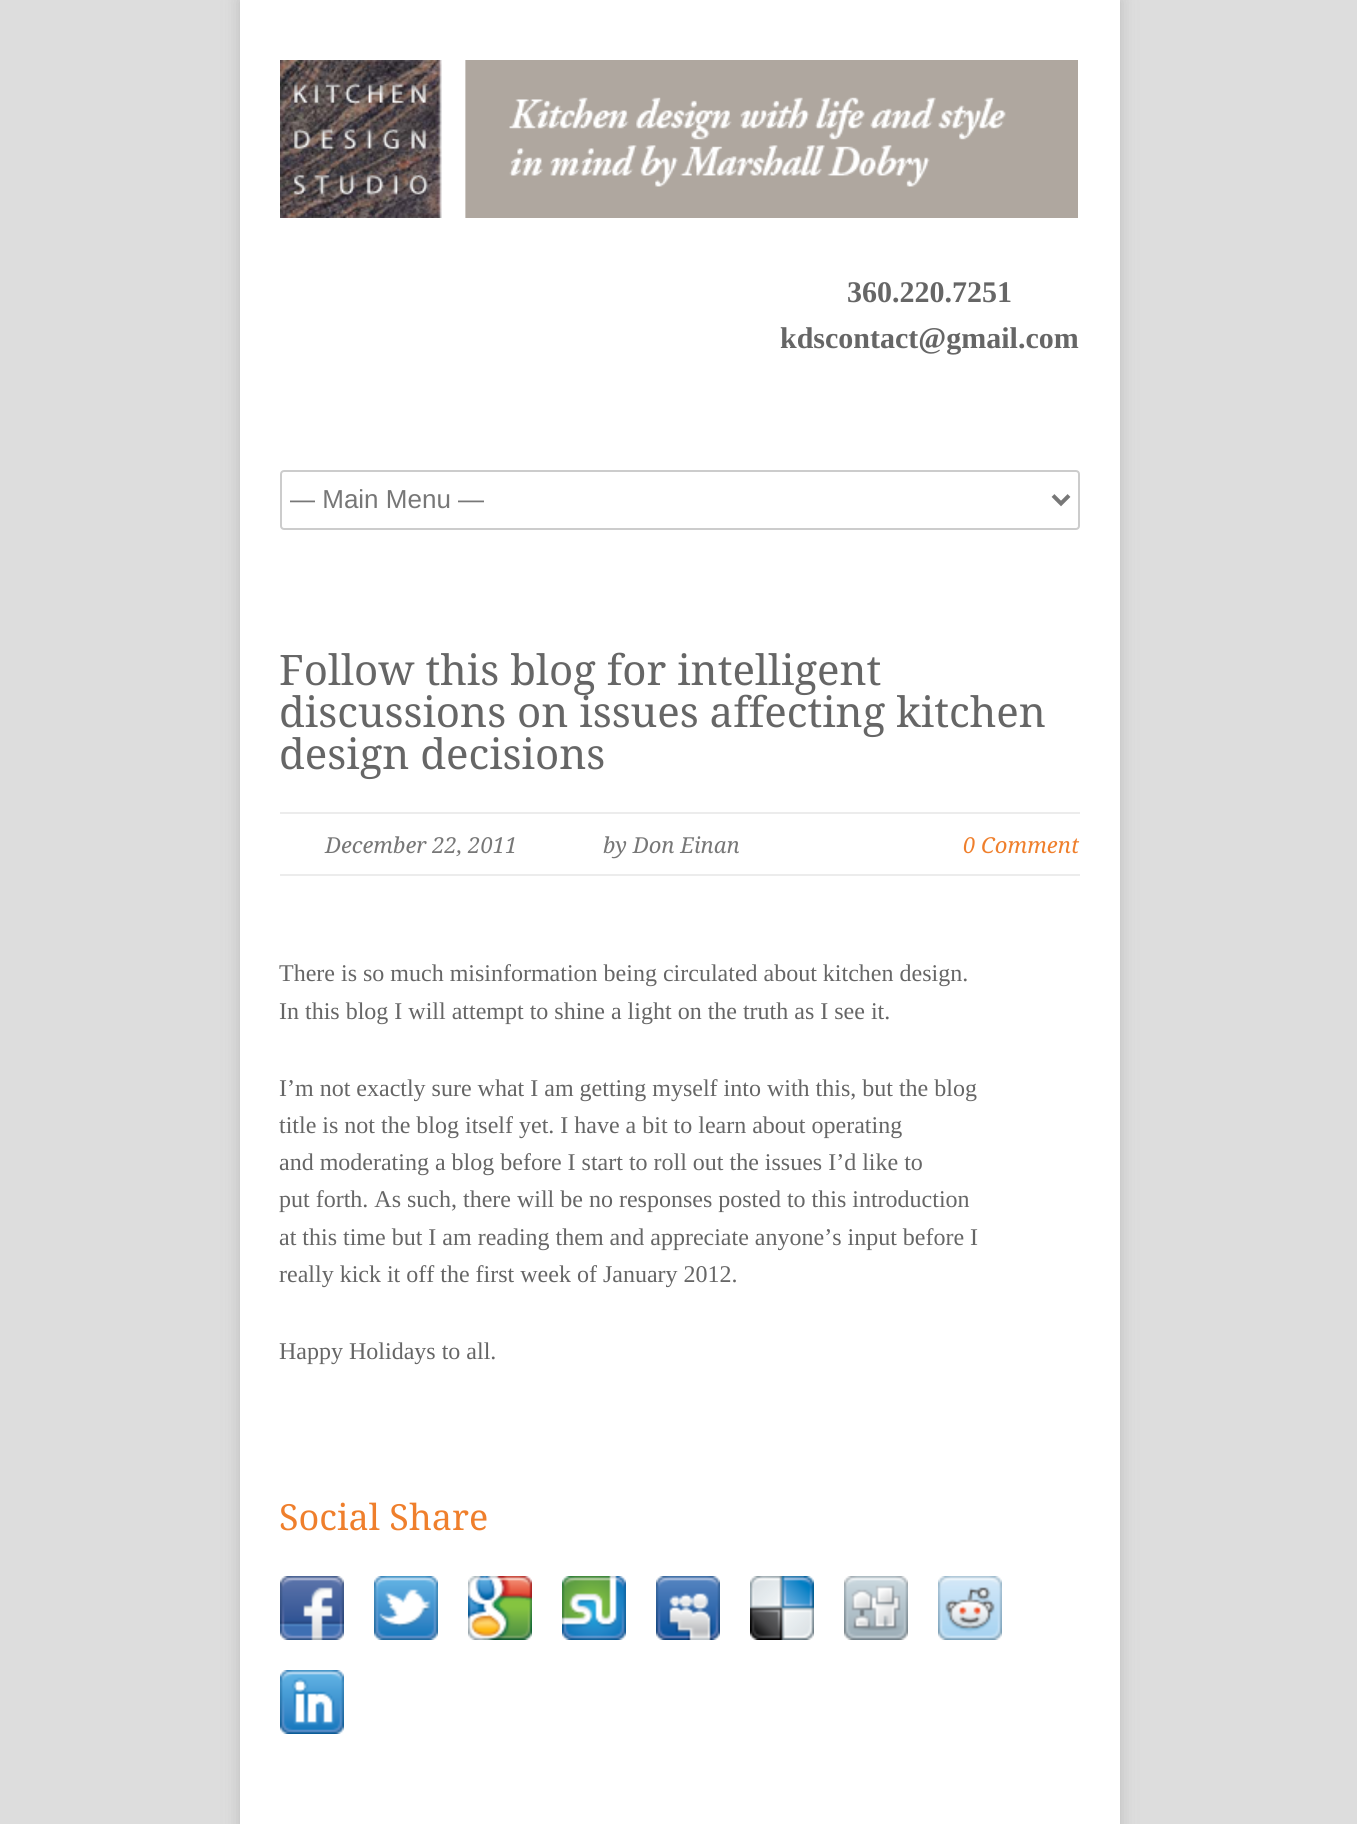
import math
import cairocffi as cairo

surface = cairo.ImageSurface(cairo.FORMAT_RGB24, 1357, 1824)
ctx = cairo.Context(surface)
options = cairo.FontOptions()
options.set_hint_metrics(cairo.HINT_METRICS_OFF)
options.set_hint_style(cairo.HINT_STYLE_NONE)
ctx.set_font_options(options)
ctx.set_miter_limit(4)


def rgb(r, g, b):
    ctx.set_source_rgb(r / 255, g / 255, b / 255)


def face(family, size, italic, bold):
    ctx.select_font_face(family, cairo.FONT_SLANT_ITALIC if italic else cairo.FONT_SLANT_NORMAL, cairo.FONT_WEIGHT_BOLD if bold else cairo.FONT_WEIGHT_NORMAL)
    ctx.set_font_size(size)


def label(x, y, s):
    ctx.move_to(x, y)
    ctx.show_text(s)


def rect(x, y, w, h):
    ctx.rectangle(x, y, w, h)
    ctx.fill()


def rrect(x, y, w, h, r):
    ctx.new_sub_path()
    for i, (u, v) in enumerate([(x + w - r, y + h - r), (x + r, y + h - r), (x + r, y + r), (x + w - r, y + r)]):
        ctx.arc(u, v, r, i * math.pi / 2, (i + 1) * math.pi / 2)
    ctx.close_path()


def soft_shadow(x, y, w, h, r, blur, alpha):
    ctx.push_group_with_content(cairo.CONTENT_ALPHA)
    ctx.set_operator(cairo.OPERATOR_SOURCE)
    for i in range(15, -16, -2):
        e = blur * i / 6
        if min(w, h) + 2 * e > 0:
            ctx.set_source_rgba(0, 0, 0, alpha * math.erfc((i - 1) / 8.5) / 2)
            rrect(x - e, y - e, w + 2 * e, h + 2 * e, max(0, min(r + e + blur * .6, min(w, h) / 2 + e)))
            ctx.fill()
    ctx.mask(ctx.pop_group())


def image(path, x, y, w, h):
    ctx.save()
    ctx.set_source_surface(cairo.ImageSurface.create_from_png(path), x, y)
    ctx.rectangle(x, y, w, h)
    ctx.fill()
    ctx.restore()


rgb(221, 221, 221)
ctx.paint()
rgb(187, 187, 187)
soft_shadow(240, 0, 880, 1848, 0, 8, 1)
rgb(255, 255, 255)
rect(240, 0, 880, 1824)
image('image0.png', 280, 60, 798, 158)
face('Liberation Serif', 30, 0, 1)
rgb(102, 102, 102)
label(847, 302, '360.220.7251')
label(780, 348, 'kdscontact@gmail.com')
rrect(281, 471, 798, 58, 3)
rgb(204, 204, 204)
ctx.stroke()
ctx.new_path()
ctx.move_to(1053, 495.5)
ctx.line_to(1061, 503.5)
ctx.line_to(1069, 495.5)
rgb(119, 119, 119)
ctx.set_line_width(4)
ctx.stroke()
ctx.save()
ctx.rectangle(290, 482, 756, 34)
ctx.clip()
face('Liberation Sans', 26, 0, 0)
label(289, 508, '— Main Menu —')
ctx.restore()
face('Droid Serif', 42, 0, 0)
rgb(102, 102, 102)
label(279, 685, 'Follow this blog for intelligent')
label(279, 727, 'discussions on issues affecting kitchen')
label(279, 769, 'design decisions')
rgb(236, 236, 236)
rect(280, 812, 800, 2)
rect(280, 874, 800, 2)
face('Droid Serif', 22, 1, 0)
rgb(119, 119, 119)
label(325, 853, 'December 22, 2011')
label(603, 853, 'by Don Einan')
rgb(239, 127, 44)
label(963, 853, '0 Comment')
face('Liberation Serif', 24, 0, 0)
rgb(102, 102, 102)
label(279, 981, 'There is so much misinformation being circulated about kitchen design.')
label(279, 1019, 'In this blog I will attempt to shine a light on the truth as I see it.')
label(279, 1096, 'I’m not exactly sure what I am getting myself into with this, but the blog')
label(279, 1133, 'title is not the blog itself yet. I have a bit to learn about operating')
label(279, 1170, 'and moderating a blog before I start to roll out the issues I’d like to')
label(279, 1207, 'put forth. As such, there will be no responses posted to this introduction')
label(279, 1245, 'at this time but I am reading them and appreciate anyone’s input before I')
label(279, 1282, 'really kick it off the first week of January 2012.')
label(279, 1359, 'Happy Holidays to all.')
face('Droid Serif', 36, 0, 0)
rgb(239, 127, 44)
label(279, 1530, 'Social Share')
image('image1.png', 280, 1576, 64, 64)
image('image2.png', 374, 1576, 64, 64)
image('image3.png', 468, 1576, 64, 64)
image('image4.png', 562, 1576, 64, 64)
image('image5.png', 656, 1576, 64, 64)
image('image6.png', 750, 1576, 64, 64)
image('image7.png', 844, 1576, 64, 64)
image('image8.png', 938, 1576, 64, 64)
image('image9.png', 280, 1670, 64, 64)
surface.write_to_png('render.png')
